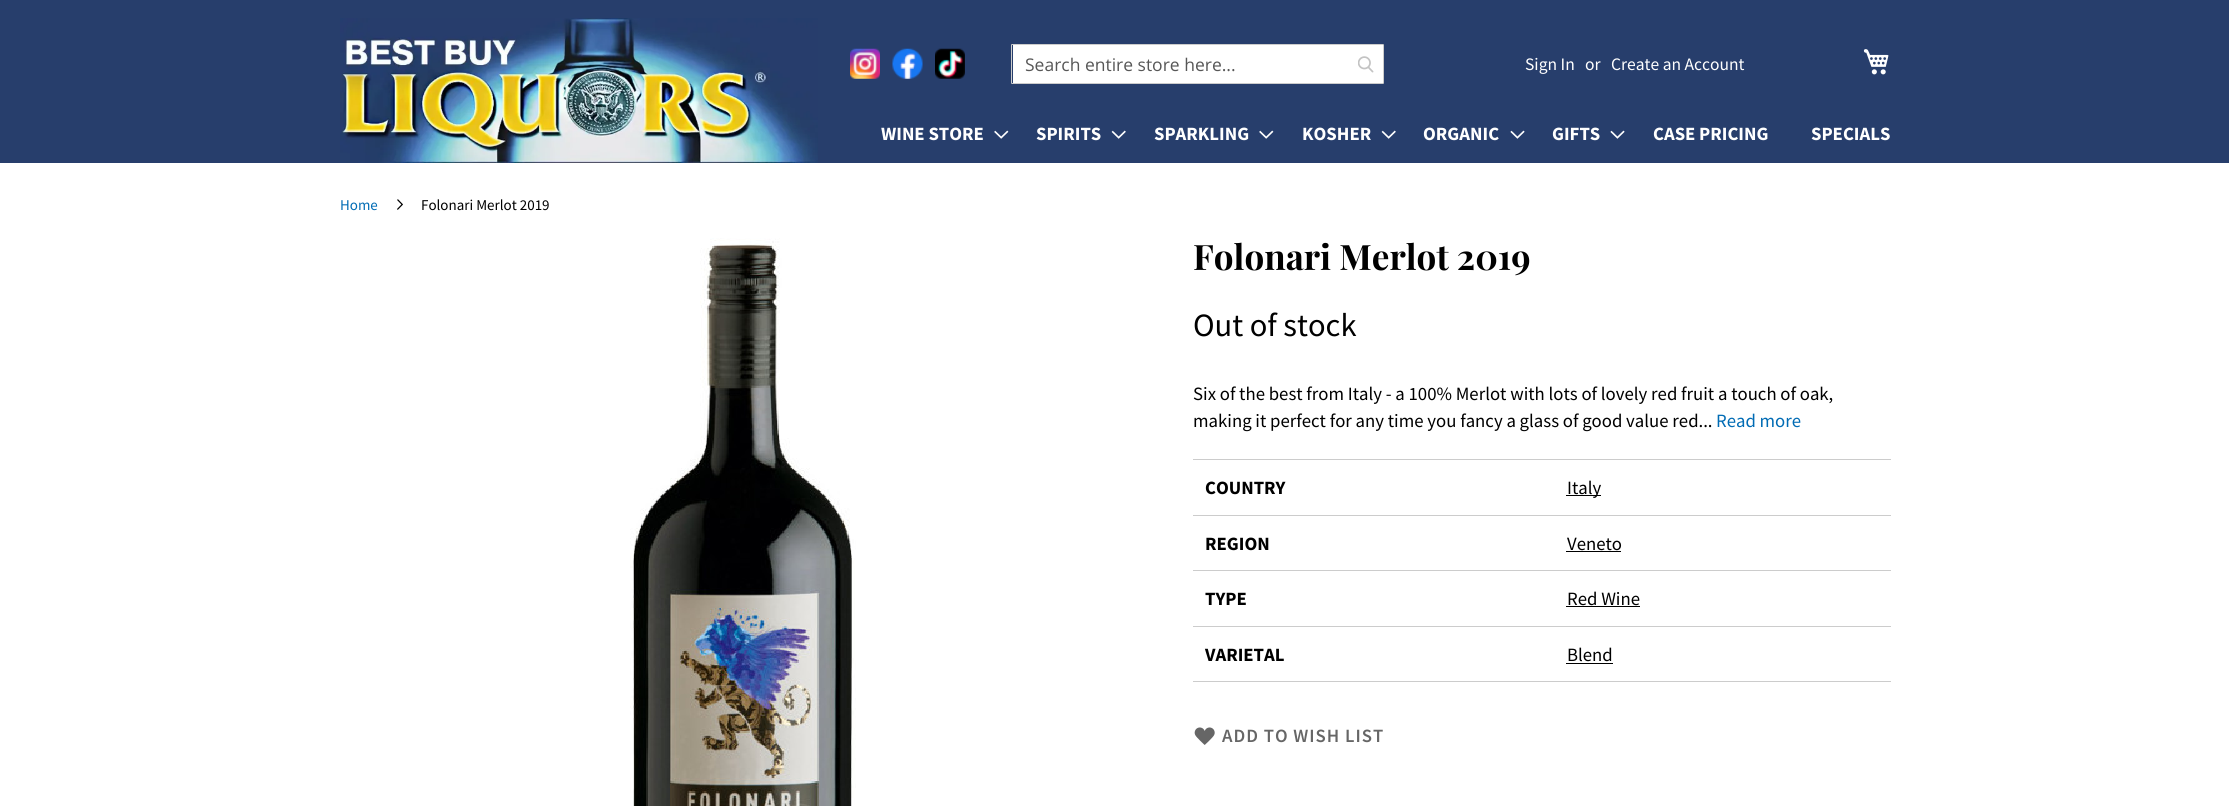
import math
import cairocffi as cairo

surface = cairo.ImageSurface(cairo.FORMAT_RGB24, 2229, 806)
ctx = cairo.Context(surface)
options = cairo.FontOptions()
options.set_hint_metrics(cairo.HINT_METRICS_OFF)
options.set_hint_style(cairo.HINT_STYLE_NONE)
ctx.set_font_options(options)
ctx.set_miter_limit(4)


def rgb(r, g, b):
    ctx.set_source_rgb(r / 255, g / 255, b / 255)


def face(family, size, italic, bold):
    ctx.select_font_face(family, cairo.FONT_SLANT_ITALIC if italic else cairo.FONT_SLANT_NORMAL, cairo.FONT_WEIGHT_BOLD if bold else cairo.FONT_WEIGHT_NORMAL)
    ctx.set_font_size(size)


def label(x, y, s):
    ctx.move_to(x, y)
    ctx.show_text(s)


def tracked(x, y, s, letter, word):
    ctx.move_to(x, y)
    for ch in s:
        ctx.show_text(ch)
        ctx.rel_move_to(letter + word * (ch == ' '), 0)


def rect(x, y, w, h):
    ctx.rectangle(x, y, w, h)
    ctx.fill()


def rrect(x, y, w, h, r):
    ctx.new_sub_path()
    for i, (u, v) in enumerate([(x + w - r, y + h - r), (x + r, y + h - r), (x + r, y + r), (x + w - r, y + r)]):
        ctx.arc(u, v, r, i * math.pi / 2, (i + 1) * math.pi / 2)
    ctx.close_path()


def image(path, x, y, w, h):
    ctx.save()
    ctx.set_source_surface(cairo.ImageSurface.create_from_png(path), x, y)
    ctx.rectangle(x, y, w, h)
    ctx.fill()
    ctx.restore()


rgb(255, 255, 255)
ctx.paint()
rgb(39, 62, 108)
rect(0, 0, 2229, 163)
image('image0.png', 340, 18, 478, 145)
image('image1.png', 850, 48, 30, 31)
image('image2.png', 892, 48, 31, 31)
image('image3.png', 935, 48, 30, 31)
rgb(255, 255, 255)
rect(1013, 45, 370, 38)
rrect(1011.5, 44.5, 372, 39, 0.5)
rgb(204, 204, 204)
ctx.set_line_width(1)
ctx.stroke()
face('Open Sans', 17.5, 0, 0)
rgb(87, 87, 87)
label(1025, 71, 'Search entire store here...')
image('image4.png', 1358, 56, 16, 17)
image('image5.png', 1863, 49, 26, 26)
face('Source Sans Pro', 17.5, 0, 0)
rgb(255, 255, 255)
label(1525, 70, 'Sign In')
label(1585, 70, 'or')
label(1611, 70, 'Create an Account')
face('Source Sans Pro', 18.75, 0, 1)
label(881, 140, 'WINE STORE')
image('image6.png', 994, 130, 15, 9)
label(1036, 140, 'SPIRITS')
image('image7.png', 1111, 130, 15, 9)
label(1154, 140, 'SPARKLING')
image('image6.png', 1259, 130, 15, 9)
label(1302, 140, 'KOSHER')
image('image7.png', 1381, 130, 15, 9)
label(1423, 140, 'ORGANIC')
image('image8.png', 1510, 130, 15, 9)
label(1552, 140, 'GIFTS')
image('image8.png', 1610, 130, 15, 9)
label(1653, 140, 'CASE PRICING')
label(1811, 140, 'SPECIALS')
face('Source Sans Pro', 15, 0, 0)
rgb(0, 107, 180)
label(340, 210, 'Home')
image('image9.png', 397, 199, 6, 11)
rgb(0, 0, 0)
label(421, 210, 'Folonari Merlot 2019')
image('image10.png', 630, 238, 226, 568)
face('Playfair Display', 35, 0, 1)
label(1193, 270, 'Folonari Merlot 2019')
face('Source Sans Pro', 32.5, 0, 0)
label(1193, 336, 'Out of stock')
face('Source Sans Pro', 18.75, 0, 0)
label(1193, 400, 'Six of the best from Italy - a 100% Merlot with lots of lovely red fruit a touch of oak,')
label(1193, 427, 'making it perfect for any time you fancy a glass of good value red...')
rgb(0, 107, 180)
label(1716, 427, 'Read more')
face('Source Sans Pro', 18.75, 0, 1)
rgb(0, 0, 0)
label(1205, 494, 'COUNTRY')
rgb(204, 204, 204)
rect(1193, 459, 698, 1)
rgb(0, 0, 0)
rect(1566, 495, 35, 1)
face('Source Sans Pro', 18.75, 0, 0)
label(1567, 494, 'Italy')
face('Source Sans Pro', 18.75, 0, 1)
label(1205, 550, 'REGION')
rgb(204, 204, 204)
rect(1193, 515, 698, 1)
face('Source Sans Pro', 18.75, 0, 0)
rgb(0, 0, 0)
label(1567, 550, 'Veneto')
rect(1566, 551, 55, 1)
face('Source Sans Pro', 18.75, 0, 1)
label(1205, 605, 'TYPE')
rgb(204, 204, 204)
rect(1193, 570, 698, 1)
face('Source Sans Pro', 18.75, 0, 0)
rgb(0, 0, 0)
label(1567, 605, 'Red Wine')
rect(1566, 606, 74, 1)
face('Source Sans Pro', 18.75, 0, 1)
label(1205, 661, 'VARIETAL')
rgb(204, 204, 204)
rect(1193, 626, 698, 1)
face('Source Sans Pro', 18.75, 0, 0)
rgb(0, 0, 0)
label(1567, 661, 'Blend')
rect(1566, 663, 47, 1)
rgb(204, 204, 204)
rect(1193, 681, 698, 1)
image('image11.png', 1194, 727, 21, 18)
face('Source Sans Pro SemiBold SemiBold', 18.75, 0, 0)
rgb(102, 102, 102)
tracked(1222, 742, 'ADD TO WISH LIST', 1, 0)
surface.write_to_png('render.png')
